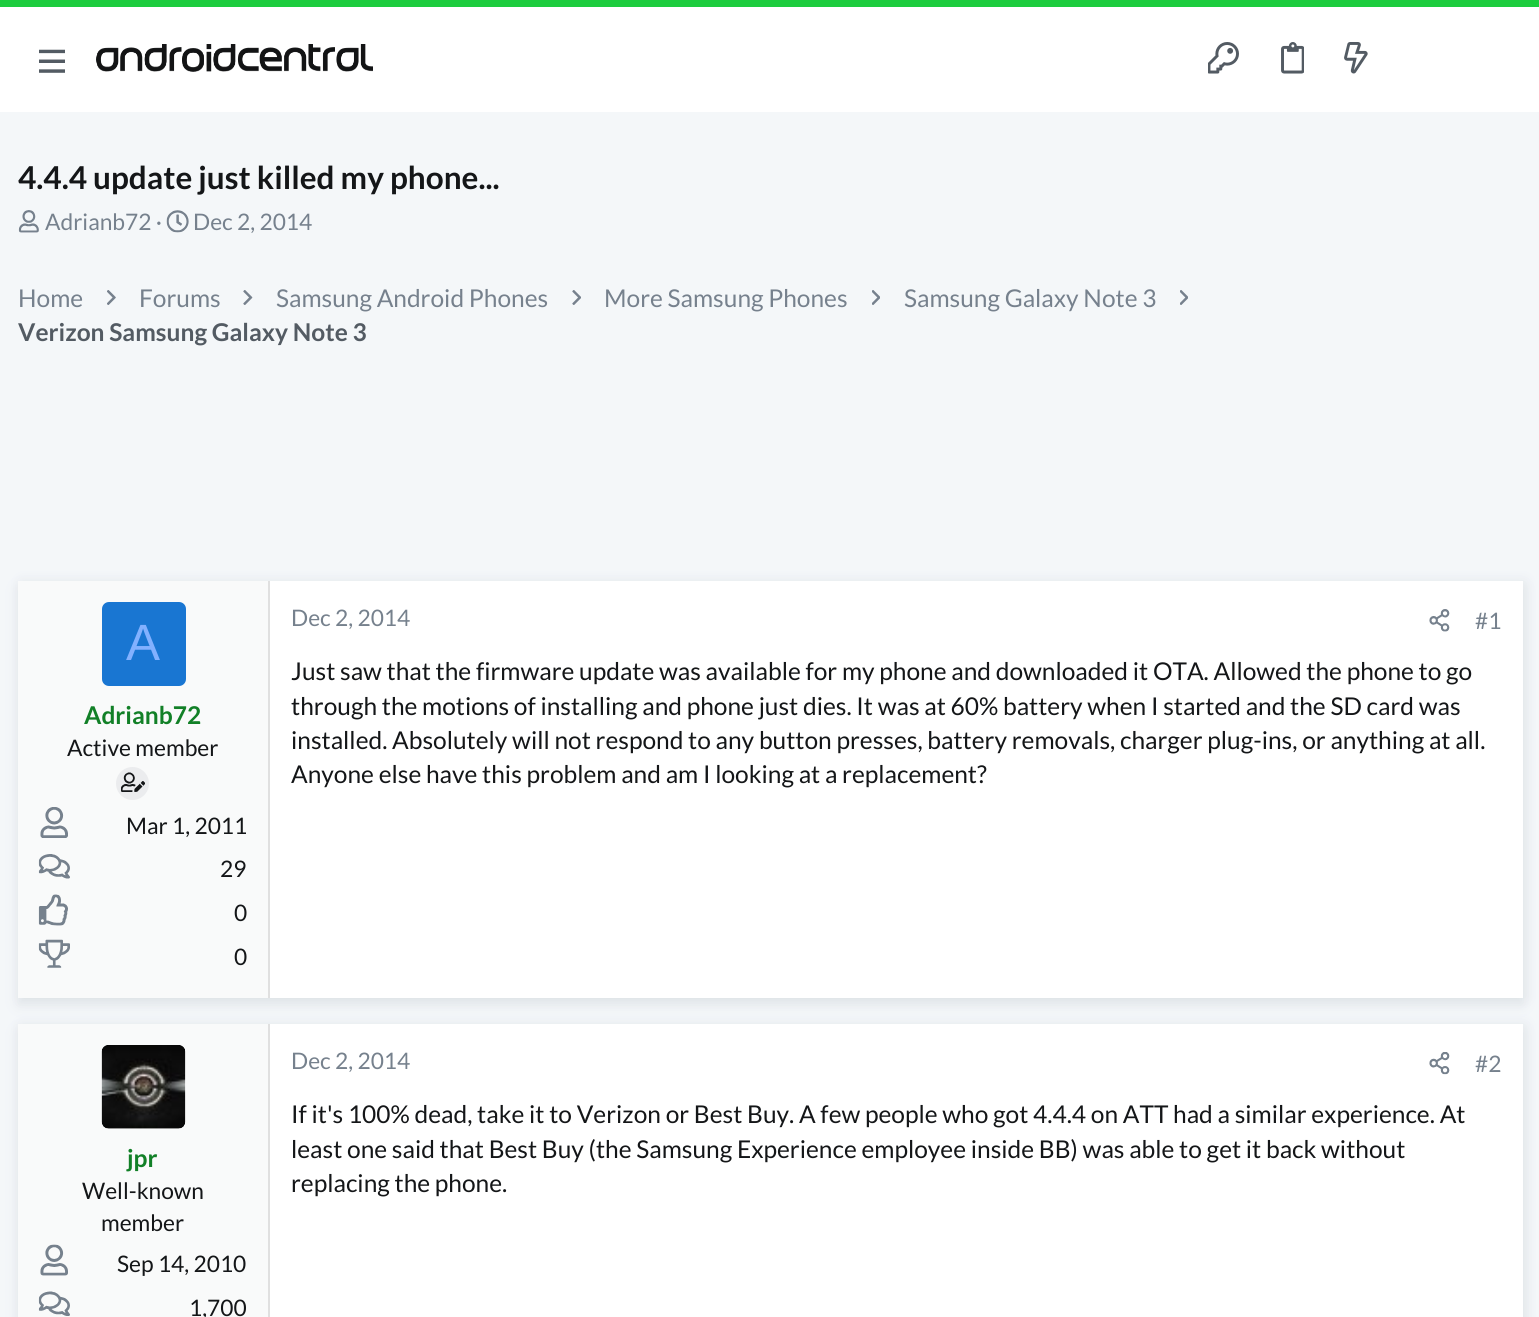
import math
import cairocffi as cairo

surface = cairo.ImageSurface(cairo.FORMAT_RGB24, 1539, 1317)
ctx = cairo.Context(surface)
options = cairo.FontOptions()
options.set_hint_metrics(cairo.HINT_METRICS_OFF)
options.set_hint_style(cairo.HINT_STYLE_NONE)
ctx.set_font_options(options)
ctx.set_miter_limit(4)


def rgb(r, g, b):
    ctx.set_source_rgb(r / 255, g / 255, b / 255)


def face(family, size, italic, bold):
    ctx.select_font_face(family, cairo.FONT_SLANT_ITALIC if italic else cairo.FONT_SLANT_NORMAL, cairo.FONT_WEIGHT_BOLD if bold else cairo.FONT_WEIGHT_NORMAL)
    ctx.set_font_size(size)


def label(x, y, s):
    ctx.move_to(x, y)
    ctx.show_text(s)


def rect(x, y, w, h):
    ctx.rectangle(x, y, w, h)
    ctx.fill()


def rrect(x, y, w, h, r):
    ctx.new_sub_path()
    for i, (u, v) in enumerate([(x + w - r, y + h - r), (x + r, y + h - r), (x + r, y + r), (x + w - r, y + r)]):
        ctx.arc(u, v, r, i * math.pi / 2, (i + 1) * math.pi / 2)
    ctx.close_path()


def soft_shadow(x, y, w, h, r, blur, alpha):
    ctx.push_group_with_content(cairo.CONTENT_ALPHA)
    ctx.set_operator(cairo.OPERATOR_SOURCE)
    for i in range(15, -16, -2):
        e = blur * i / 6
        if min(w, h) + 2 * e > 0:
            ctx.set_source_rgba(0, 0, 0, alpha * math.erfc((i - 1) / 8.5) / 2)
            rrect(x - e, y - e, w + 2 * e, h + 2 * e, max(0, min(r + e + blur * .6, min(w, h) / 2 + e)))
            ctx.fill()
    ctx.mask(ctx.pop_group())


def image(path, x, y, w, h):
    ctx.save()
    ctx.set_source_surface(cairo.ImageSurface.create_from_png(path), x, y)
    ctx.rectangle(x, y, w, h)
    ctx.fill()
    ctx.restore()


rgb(244, 247, 249)
ctx.paint()
rgb(255, 255, 255)
rect(0, 7, 1539, 105)
rgb(28, 204, 62)
rect(0, 0, 1539, 7)
image('image0.png', 39, 49, 26, 24)
image('image1.png', 96, 44, 277, 28)
image('image2.png', 1208, 42, 31, 32)
image('image3.png', 1281, 42, 23, 32)
image('image4.png', 1344, 42, 24, 32)
face('Lato', 31.5, 0, 1)
rgb(20, 22, 24)
label(18, 189, '4.4.4 update just killed my phone...')
image('image5.png', 18, 210, 21, 23)
face('Lato', 22.75, 0, 0)
rgb(118, 129, 141)
label(45, 230, 'Adrianb72 ·')
image('image6.png', 166, 210, 23, 23)
label(193, 230, 'Dec 2, 2014')
face('Lato', 24.5, 0, 0)
label(18, 307, 'Home')
image('image7.png', 107, 290, 9, 15)
label(139, 307, 'Forums')
image('image8.png', 243, 290, 10, 15)
label(276, 307, 'Samsung Android Phones')
image('image9.png', 572, 290, 9, 15)
label(604, 307, 'More Samsung Phones')
image('image10.png', 872, 290, 8, 15)
label(904, 307, 'Samsung Galaxy Note 3')
image('image10.png', 1180, 290, 8, 15)
face('Lato', 24.5, 0, 1)
rgb(83, 91, 99)
label(18, 341, 'Verizon Samsung Galaxy Note 3')
rgb(107, 119, 128)
soft_shadow(21, 581, 1505, 417, 0, 7, 0.08)
soft_shadow(18, 588, 1505, 417, 0, 7, 0.12)
rgb(255, 255, 255)
rect(270, 581, 1253, 417)
rgb(249, 250, 250)
rect(18, 581, 250, 417)
rgb(224, 224, 224)
rect(268, 581, 2, 417)
rgb(25, 118, 210)
rrect(102, 602, 84, 84, 7)
ctx.fill()
face('Liberation Sans', 51, 0, 0)
rgb(130, 177, 255)
label(126, 660, 'A')
face('Lato', 24.5, 0, 1)
rgb(18, 128, 39)
label(84, 724, 'Adrianb72')
face('Lato', 22.75, 0, 0)
rgb(20, 22, 24)
label(67, 756, 'Active member')
rgb(235, 236, 238)
ctx.new_path()
ctx.arc(132.5, 783.5, 16.5, 0, 2 * math.pi)
ctx.fill()
image('image11.png', 121, 772, 24, 20)
image('image12.png', 40, 807, 28, 31)
rgb(20, 22, 24)
label(126, 834, 'Mar 1, 2011')
image('image13.png', 38, 854, 32, 25)
label(220, 877, '29')
image('image14.png', 38, 894, 30, 32)
label(234, 921, '0')
image('image15.png', 38, 939, 32, 29)
label(234, 965, '0')
rgb(118, 129, 141)
label(291, 626, 'Dec 2, 2014')
image('image16.png', 1429, 609, 21, 23)
label(1475, 629, '#1')
face('Lato', 24.5, 0, 0)
rgb(20, 22, 24)
label(291, 680, 'Just saw that the firmware update was available for my phone and downloaded it OTA. Allowed the phone to go')
label(291, 715, 'through the motions of installing and phone just dies. It was at 60% battery when I started and the SD card was')
label(291, 749, 'installed. Absolutely will not respond to any button presses, battery removals, charger plug-ins, or anything at all.')
label(291, 783, 'Anyone else have this problem and am I looking at a replacement?')
rgb(107, 119, 128)
soft_shadow(21, 1024, 1505, 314, 0, 7, 0.08)
soft_shadow(18, 1031, 1505, 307, 0, 7, 0.12)
rgb(255, 255, 255)
rect(270, 1024, 1253, 293)
face('Lato', 22.75, 0, 0)
rgb(118, 129, 141)
label(291, 1069, 'Dec 2, 2014')
image('image17.png', 1429, 1052, 21, 23)
label(1475, 1072, '#2')
face('Lato', 24.5, 0, 0)
rgb(20, 22, 24)
label(291, 1123, 'If it\'s 100% dead, take it to Verizon or Best Buy. A few people who got 4.4.4 on ATT had a similar experience. At')
label(291, 1158, 'least one said that Best Buy (the Samsung Experience employee inside BB) was able to get it back without')
label(291, 1192, 'replacing the phone.')
rgb(249, 250, 250)
rect(18, 1024, 250, 293)
rgb(224, 224, 224)
rect(268, 1024, 2, 293)
rgb(255, 255, 255)
rrect(102, 1045, 84, 84, 7)
ctx.fill()
image('image18.png', 101, 1045, 85, 84)
face('Lato', 24.5, 0, 1)
rgb(18, 128, 39)
label(127, 1167, 'jpr')
face('Lato', 22.75, 0, 0)
rgb(20, 22, 24)
label(82, 1199, 'Well-known')
label(101, 1231, 'member')
image('image19.png', 40, 1244, 28, 32)
label(117, 1272, 'Sep 14, 2010')
image('image20.png', 38, 1291, 32, 25)
label(189, 1316, '1,700')
surface.write_to_png('render.png')
